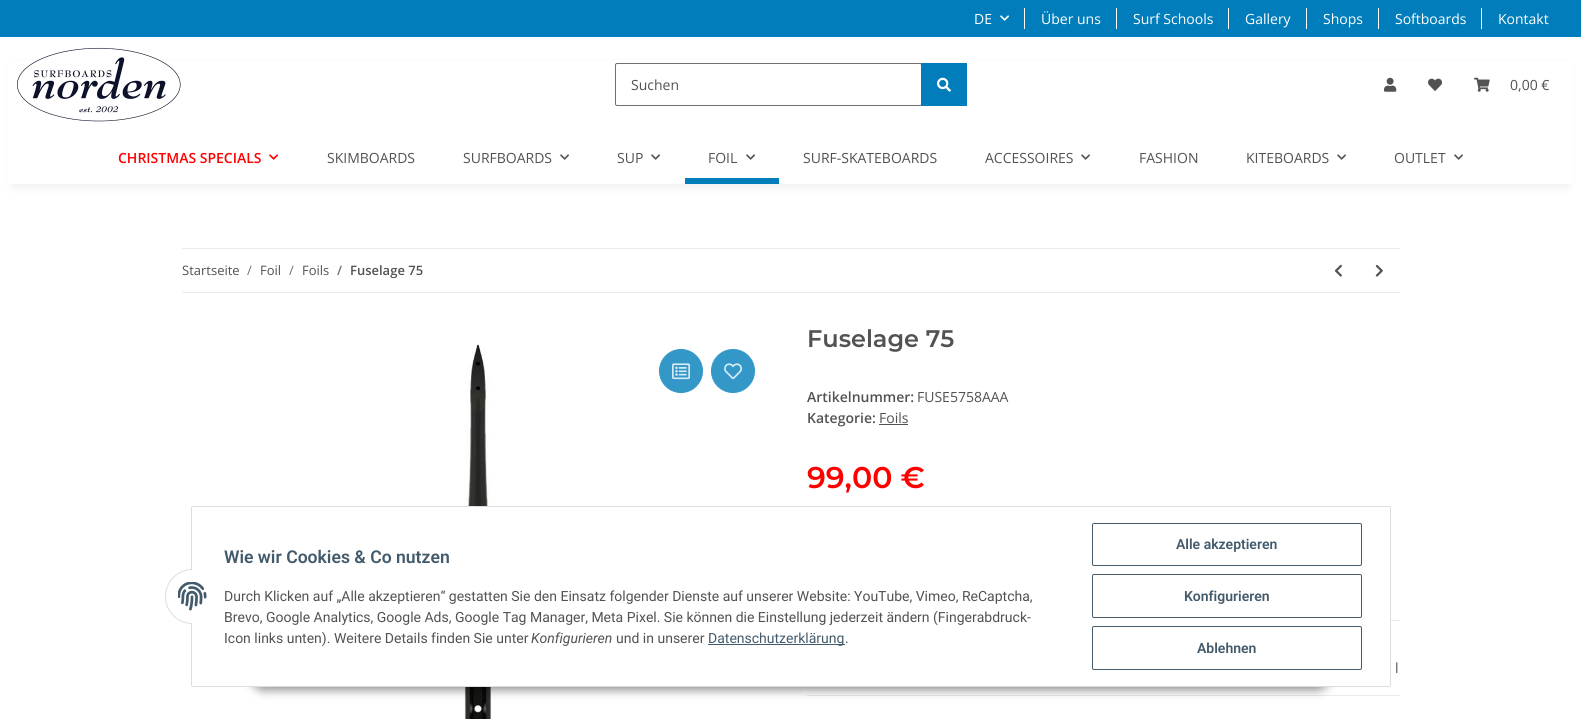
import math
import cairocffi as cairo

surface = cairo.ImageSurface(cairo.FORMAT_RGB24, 1581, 719)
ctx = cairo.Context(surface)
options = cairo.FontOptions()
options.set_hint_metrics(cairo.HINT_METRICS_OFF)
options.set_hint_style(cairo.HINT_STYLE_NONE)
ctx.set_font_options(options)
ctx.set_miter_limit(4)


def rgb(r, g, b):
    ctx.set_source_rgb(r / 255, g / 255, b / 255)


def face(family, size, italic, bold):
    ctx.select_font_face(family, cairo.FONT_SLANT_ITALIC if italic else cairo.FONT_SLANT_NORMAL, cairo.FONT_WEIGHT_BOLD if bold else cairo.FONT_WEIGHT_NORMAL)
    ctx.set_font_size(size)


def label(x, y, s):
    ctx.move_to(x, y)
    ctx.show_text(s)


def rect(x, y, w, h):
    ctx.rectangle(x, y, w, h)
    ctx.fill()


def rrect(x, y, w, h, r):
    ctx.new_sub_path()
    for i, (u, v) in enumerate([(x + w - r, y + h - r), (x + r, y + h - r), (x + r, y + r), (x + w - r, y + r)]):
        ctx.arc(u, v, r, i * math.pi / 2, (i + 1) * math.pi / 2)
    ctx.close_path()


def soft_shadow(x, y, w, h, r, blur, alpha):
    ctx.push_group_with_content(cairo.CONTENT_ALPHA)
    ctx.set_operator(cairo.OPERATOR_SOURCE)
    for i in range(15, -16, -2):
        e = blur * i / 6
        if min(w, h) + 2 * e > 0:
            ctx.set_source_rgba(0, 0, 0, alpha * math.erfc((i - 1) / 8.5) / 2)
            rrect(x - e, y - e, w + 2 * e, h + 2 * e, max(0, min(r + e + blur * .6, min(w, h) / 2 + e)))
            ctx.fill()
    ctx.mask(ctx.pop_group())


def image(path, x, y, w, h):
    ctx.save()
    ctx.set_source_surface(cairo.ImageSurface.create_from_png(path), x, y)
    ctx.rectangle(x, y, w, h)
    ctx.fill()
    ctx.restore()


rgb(255, 255, 255)
ctx.paint()
rgb(0, 125, 186)
rect(0, 0, 1581, 37)
face('Open Sans', 14, 0, 0)
rgb(255, 255, 255)
label(974, 24, 'DE')
image('image0.png', 1000, 15, 9, 6)
rect(1024, 8, 1, 21)
label(1041, 24, 'Über uns')
rect(1116, 8, 1, 21)
label(1133, 24, 'Surf Schools')
rect(1228, 8, 1, 21)
label(1245, 24, 'Gallery')
rect(1306, 8, 1, 21)
label(1323, 24, 'Shops')
rect(1378, 8, 1, 21)
label(1395, 24, 'Softboards')
rect(1481, 8, 1, 21)
label(1498, 24, 'Kontakt')
rgb(0, 0, 0)
soft_shadow(12, 65, 1557, 123, 0, 4.5, 0.06)
rgb(255, 255, 255)
rect(8, 61, 1565, 123)
image('image1.png', 17, 47, 164, 75)
rrect(615.5, 63.5, 306, 42, 1.5)
rgb(112, 112, 112)
ctx.set_line_width(1)
ctx.stroke()
rgb(82, 82, 82)
label(631, 90, 'Suchen')
rgb(0, 125, 186)
rect(921, 63, 46, 43)
image('image2.png', 937, 77, 14, 15)
image('image3.png', 1384, 77, 13, 15)
image('image4.png', 1428, 78, 14, 13)
image('image5.png', 1474, 77, 16, 15)
rgb(82, 82, 82)
label(1510, 90, '0,00 €')
face('Open Sans SemiBold', 14, 0, 0)
rgb(255, 0, 0)
label(118, 163, 'CHRISTMAS SPECIALS')
image('image6.png', 269, 154, 9, 6)
face('Open Sans', 14, 0, 0)
rgb(82, 82, 82)
label(327, 163, 'SKIMBOARDS')
label(463, 163, 'SURFBOARDS')
image('image7.png', 560, 154, 9, 6)
label(617, 163, 'SUP')
image('image7.png', 651, 154, 9, 6)
label(708, 163, 'FOIL')
image('image7.png', 746, 154, 9, 6)
rgb(0, 125, 186)
rect(685, 178, 94, 6)
rgb(82, 82, 82)
label(803, 163, 'SURF-SKATEBOARDS')
label(985, 163, 'ACCESSOIRES')
image('image7.png', 1081, 154, 9, 6)
label(1139, 163, 'FASHION')
label(1246, 163, 'KITEBOARDS')
image('image7.png', 1337, 154, 9, 6)
label(1394, 163, 'OUTLET')
image('image7.png', 1454, 154, 9, 6)
rgb(235, 235, 235)
rect(182, 248, 1218, 1)
rect(182, 292, 1218, 1)
face('Open Sans', 13, 0, 0)
rgb(82, 82, 82)
label(182, 275, 'Startseite')
rgb(112, 112, 112)
label(247, 275, '/')
rgb(82, 82, 82)
label(260, 275, 'Foil')
rgb(112, 112, 112)
label(289, 275, '/')
rgb(82, 82, 82)
label(302, 275, 'Foils')
face('Open Sans SemiBold', 13, 0, 0)
rgb(112, 112, 112)
label(337, 275, '/')
rgb(82, 82, 82)
label(350, 275, 'Fuselage 75')
image('image8.png', 1334, 264, 8, 13)
image('image9.png', 1375, 264, 8, 13)
image('image10.png', 464, 344, 27, 375)
rgb(51, 151, 200)
ctx.arc(681, 371, 21.5, 0, 2 * math.pi)
ctx.fill_preserve()
ctx.stroke()
image('image11.png', 672, 363, 18, 17)
ctx.arc(733, 371, 21.5, 0, 2 * math.pi)
ctx.fill_preserve()
ctx.stroke()
image('image12.png', 724, 363, 18, 17)
face('Montserrat SemiBold', 24, 0, 0)
rgb(82, 82, 82)
label(807, 347, 'Fuselage 75')
face('Open Sans SemiBold', 14, 0, 0)
label(807, 402, 'Artikelnummer:')
face('Open Sans', 14, 0, 0)
label(917, 402, 'FUSE5758AAA')
face('Open Sans SemiBold', 14, 0, 0)
label(807, 423, 'Kategorie:')
face('Open Sans', 14, 0, 0)
label(879, 423, 'Foils')
rect(879, 424, 29, 1)
face('Montserrat SemiBold', 30, 0, 0)
rgb(255, 0, 0)
label(807, 488, '99,00 €')
rgb(235, 235, 235)
rect(1391, 620, 9, 1)
rect(807, 695, 593, 1)
face('Open Sans', 14, 0, 0)
rgb(82, 82, 82)
label(1395, 673, 'l')
rgb(0, 0, 0)
soft_shadow(251, 658, 1079, 32, 16, 5, 0.45)
rgb(255, 255, 255)
rrect(191.5, 506.5, 1199, 180, 1.5)
ctx.fill_preserve()
rgb(221, 221, 221)
ctx.stroke()
rgb(255, 255, 255)
ctx.arc(192.5, 596.5, 27, 0, 2 * math.pi)
ctx.fill_preserve()
rgb(221, 221, 221)
ctx.stroke()
rgb(255, 255, 255)
rect(192, 569, 28, 55)
image('image13.png', 178, 582, 29, 29)
face('Roboto SemiBold', 17.6, 0, 0)
rgb(67, 90, 107)
label(224, 563, 'Wie wir Cookies & Co nutzen')
face('Roboto', 14, 0, 0)
rgb(82, 82, 82)
label(224, 601, 'Durch Klicken auf „Alle akzeptieren“ gestatten Sie den Einsatz folgender Dienste auf unserer Website: YouTube, Vimeo, ReCaptcha,')
label(224, 622, 'Brevo, Google Analytics, Google Ads, Google Tag Manager, Meta Pixel. Sie können die Einstellung jederzeit ändern (Fingerabdruck-')
label(224, 643, 'Icon links unten). Weitere Details finden Sie unter')
face('Roboto', 14, 1, 0)
label(531, 643, 'Konfigurieren')
face('Roboto', 14, 0, 0)
label(616, 643, 'und in unserer')
rgb(67, 90, 107)
rect(708, 644, 137, 1)
label(708, 643, 'Datenschutzerklärung')
rgb(82, 82, 82)
label(845, 643, '.')
rrect(1092.5, 523.5, 269, 42, 1.5)
rgb(67, 90, 107)
ctx.stroke()
face('Roboto SemiBold', 14, 0, 0)
label(1176, 549, 'Alle akzeptieren')
rrect(1092.5, 574.5, 269, 43, 1.5)
ctx.stroke()
label(1184, 601, 'Konfigurieren')
rrect(1092.5, 626.5, 269, 43, 1.5)
ctx.stroke()
label(1197, 653, 'Ablehnen')
surface.write_to_png('render.png')
